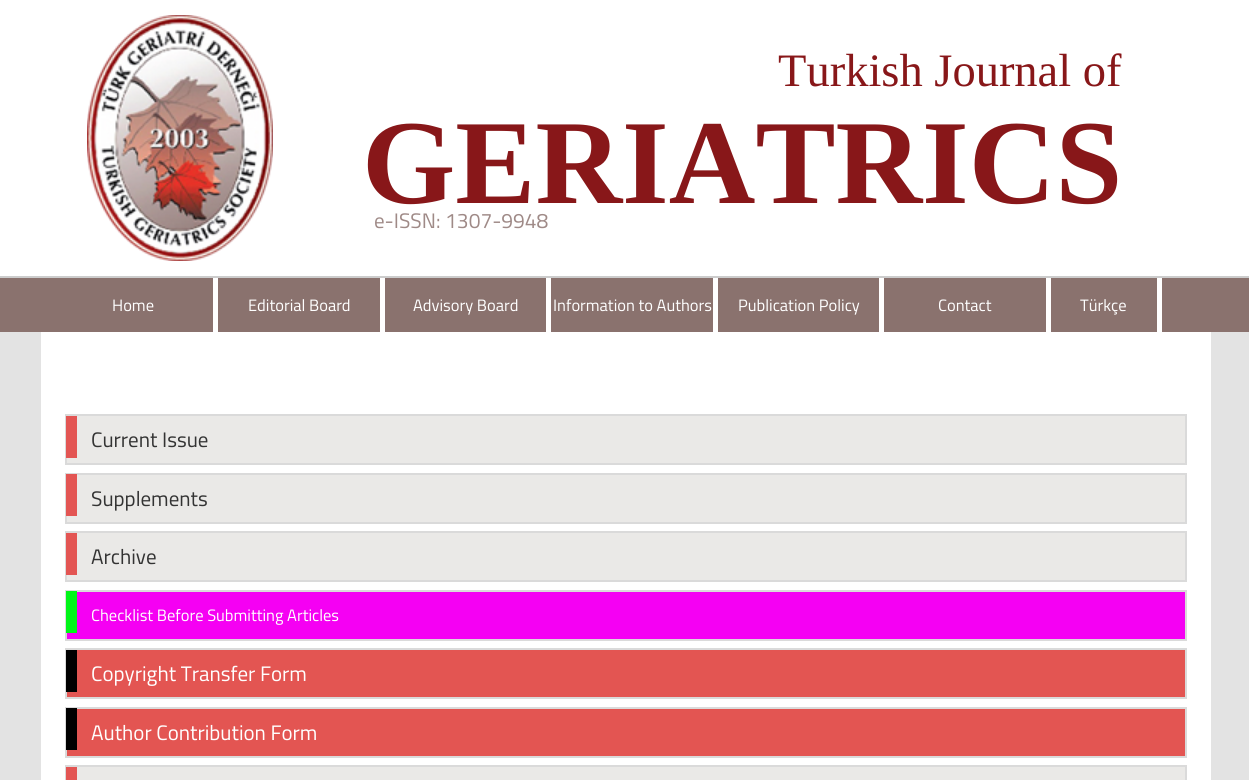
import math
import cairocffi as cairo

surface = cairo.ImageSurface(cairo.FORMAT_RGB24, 1249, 780)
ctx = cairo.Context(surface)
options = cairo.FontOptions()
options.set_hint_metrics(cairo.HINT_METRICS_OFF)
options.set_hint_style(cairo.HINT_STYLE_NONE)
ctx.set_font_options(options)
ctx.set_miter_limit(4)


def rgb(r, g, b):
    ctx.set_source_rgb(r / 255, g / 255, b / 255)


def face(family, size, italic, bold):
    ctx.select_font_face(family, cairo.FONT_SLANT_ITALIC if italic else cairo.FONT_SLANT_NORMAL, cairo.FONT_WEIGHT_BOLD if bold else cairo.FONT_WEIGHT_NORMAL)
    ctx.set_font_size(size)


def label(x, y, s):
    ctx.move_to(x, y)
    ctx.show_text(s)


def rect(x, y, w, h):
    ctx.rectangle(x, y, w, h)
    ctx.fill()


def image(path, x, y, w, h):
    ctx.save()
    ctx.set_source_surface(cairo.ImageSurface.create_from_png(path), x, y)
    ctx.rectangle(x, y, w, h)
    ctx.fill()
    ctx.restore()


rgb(227, 227, 227)
ctx.paint()
rgb(255, 255, 255)
rect(0, 0, 1249, 276)
image('image0.png', 87, 15, 186, 246)
face('Liberation Serif', 46.5, 0, 0)
rgb(136, 23, 25)
label(778, 86, 'Turkish Journal of')
face('Liberation Serif', 120, 0, 1)
label(362, 203, 'GERIATRICS')
face('Titillium Web', 21, 0, 0)
rgb(159, 138, 135)
label(374, 228, 'e-ISSN: 1307-9948')
rgb(204, 204, 204)
rect(0, 276, 1249, 2)
rgb(138, 114, 110)
rect(0, 278, 1249, 54)
rgb(255, 255, 255)
rect(213, 278, 5, 54)
face('Titillium Web', 16.5, 0, 0)
label(112, 311, 'Home')
rect(380, 278, 5, 54)
label(248, 311, 'Editorial Board')
rect(546, 278, 5, 54)
label(413, 311, 'Advisory Board')
rect(713, 278, 5, 54)
label(553, 311, 'Information to Authors')
rect(879, 278, 5, 54)
label(738, 311, 'Publication Policy')
rect(1046, 278, 5, 54)
label(938, 311, 'Contact')
rect(1157, 278, 5, 54)
label(1080, 311, 'Türkçe')
rect(41, 332, 1170, 448)
rgb(234, 233, 231)
ctx.rectangle(66, 415, 1120, 49)
ctx.fill_preserve()
rgb(218, 218, 218)
ctx.stroke()
rgb(227, 85, 83)
rect(66, 416, 11, 42)
face('Titillium Web', 21, 0, 0)
rgb(51, 51, 51)
label(91, 447, 'Current Issue')
rgb(234, 233, 231)
ctx.rectangle(66, 474, 1120, 49)
ctx.fill_preserve()
rgb(218, 218, 218)
ctx.stroke()
rgb(227, 85, 83)
rect(66, 474, 11, 42)
rgb(51, 51, 51)
label(91, 506, 'Supplements')
rgb(234, 233, 231)
ctx.rectangle(66, 532, 1120, 49)
ctx.fill_preserve()
rgb(218, 218, 218)
ctx.stroke()
rgb(227, 85, 83)
rect(66, 533, 11, 42)
rgb(51, 51, 51)
label(91, 564, 'Archive')
rgb(245, 0, 243)
ctx.rectangle(66, 591, 1120, 49)
ctx.fill_preserve()
rgb(218, 218, 218)
ctx.stroke()
rgb(0, 245, 24)
rect(66, 591, 11, 42)
face('Titillium Web', 16.5, 0, 0)
rgb(255, 255, 255)
label(91, 621, 'Checklist Before Submitting Articles')
rgb(227, 85, 82)
ctx.rectangle(66, 649, 1120, 49)
ctx.fill_preserve()
rgb(218, 218, 218)
ctx.stroke()
rgb(0, 0, 0)
rect(66, 650, 11, 42)
face('Titillium Web', 21, 0, 0)
rgb(255, 255, 255)
label(91, 681, 'Copyright Transfer Form')
rgb(227, 85, 82)
ctx.rectangle(66, 708, 1120, 49)
ctx.fill_preserve()
rgb(218, 218, 218)
ctx.stroke()
rgb(0, 0, 0)
rect(66, 708, 11, 42)
rgb(255, 255, 255)
label(91, 740, 'Author Contribution Form')
rgb(234, 233, 231)
rect(77, 767, 1108, 13)
ctx.rectangle(66, 766, 1120, 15)
rgb(218, 218, 218)
ctx.stroke()
rgb(227, 85, 83)
rect(66, 767, 11, 13)
surface.write_to_png('render.png')
